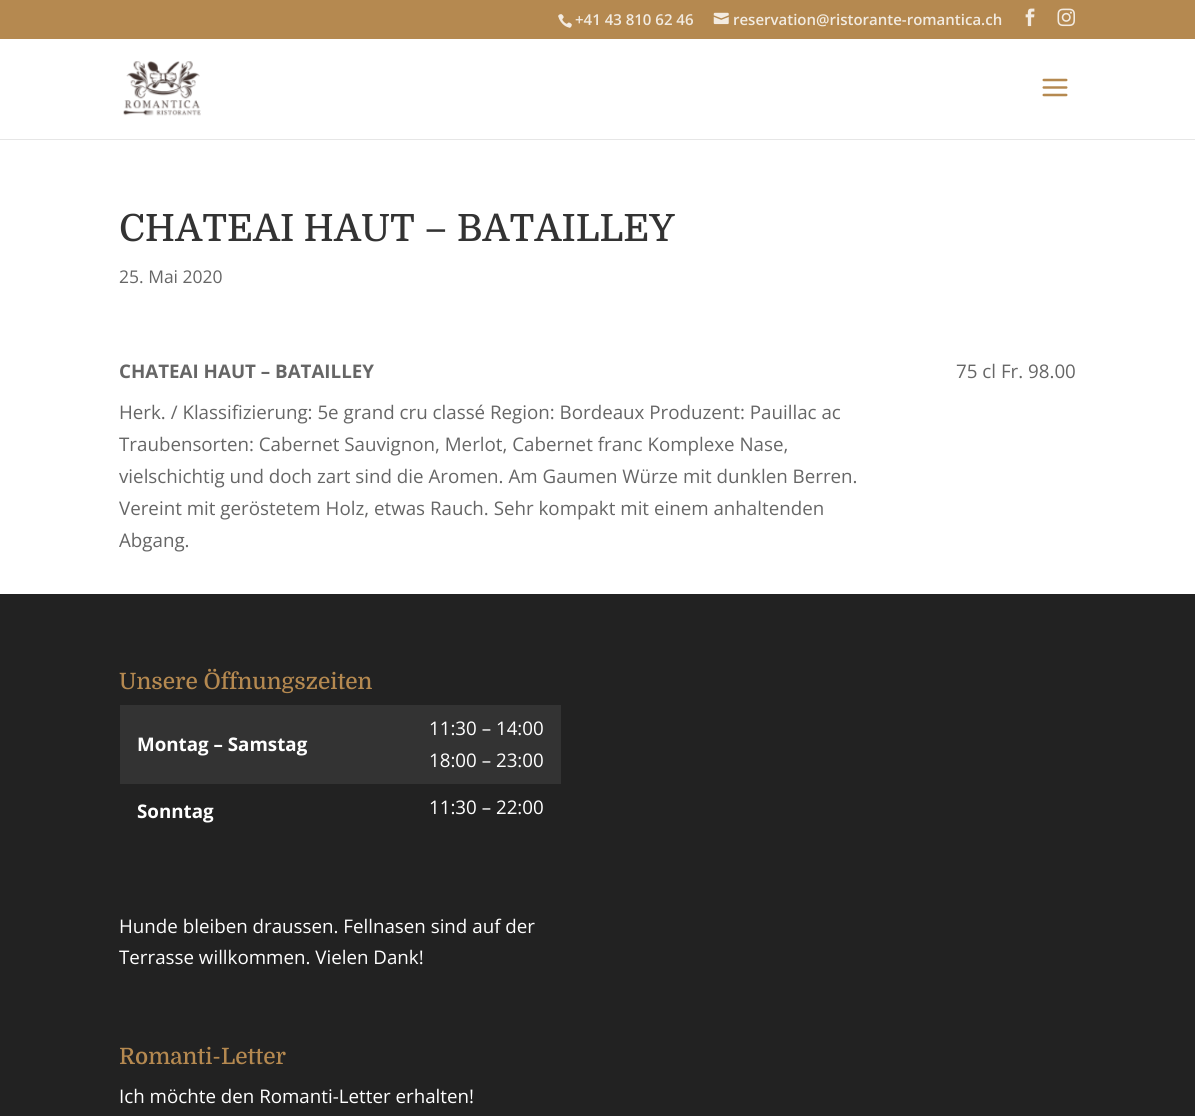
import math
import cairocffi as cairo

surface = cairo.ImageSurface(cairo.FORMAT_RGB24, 1195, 1116)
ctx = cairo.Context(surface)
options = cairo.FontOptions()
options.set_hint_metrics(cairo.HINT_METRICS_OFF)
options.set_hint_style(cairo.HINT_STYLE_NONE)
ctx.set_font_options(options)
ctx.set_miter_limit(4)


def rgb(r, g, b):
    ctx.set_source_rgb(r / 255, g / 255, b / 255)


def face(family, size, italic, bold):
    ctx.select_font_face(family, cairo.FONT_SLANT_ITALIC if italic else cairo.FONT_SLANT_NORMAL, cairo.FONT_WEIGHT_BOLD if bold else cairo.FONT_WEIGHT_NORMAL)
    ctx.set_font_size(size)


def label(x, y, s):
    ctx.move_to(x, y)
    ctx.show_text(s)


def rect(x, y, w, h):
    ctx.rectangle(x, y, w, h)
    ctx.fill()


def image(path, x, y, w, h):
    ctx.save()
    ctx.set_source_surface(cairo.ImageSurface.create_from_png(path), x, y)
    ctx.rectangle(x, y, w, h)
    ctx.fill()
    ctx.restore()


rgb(255, 255, 255)
ctx.paint()
rgb(181, 137, 80)
rect(0, 0, 1195, 39)
image('image0.png', 558, 14, 14, 14)
face('Open Sans SemiBold', 15, 0, 0)
rgb(242, 235, 225)
label(575, 25, '+41 43 810 62 46')
image('image1.png', 713, 12, 16, 13)
label(733, 25, 'reservation@ristorante-romantica.ch')
image('image2.png', 1025, 8, 10, 19)
image('image3.png', 1057, 8, 18, 19)
rgb(230, 230, 230)
rect(0, 139, 1195, 1)
image('image4.png', 123, 61, 78, 55)
image('image5.png', 1042, 78, 26, 19)
face('Domine Medium', 37.5, 0, 0)
rgb(51, 51, 51)
label(119, 241, 'CHATEAI HAUT – BATAILLEY')
face('Open Sans', 17.5, 0, 0)
rgb(102, 102, 102)
label(119, 283, '25. Mai 2020')
face('Open Sans', 18.75, 0, 1)
label(119, 378, 'CHATEAI HAUT – BATAILLEY')
face('Open Sans', 18.75, 0, 0)
label(956, 378, '75 cl Fr. 98.00')
label(119, 419, 'Herk. / Klassifizierung: 5e grand cru classé Region: Bordeaux Produzent: Pauillac ac')
label(119, 451, 'Traubensorten: Cabernet Sauvignon, Merlot, Cabernet franc Komplexe Nase,')
label(119, 483, 'vielschichtig und doch zart sind die Aromen. Am Gaumen Würze mit dunklen Berren.')
label(119, 515, 'Vereint mit geröstetem Holz, etwas Rauch. Sehr kompakt mit einem anhaltenden')
label(119, 547, 'Abgang.')
rgb(34, 34, 34)
rect(0, 594, 1195, 522)
face('Domine Medium', 22.5, 0, 0)
rgb(181, 137, 80)
label(119, 689, 'Unsere Öffnungszeiten')
rgb(51, 51, 51)
rect(120, 705, 441, 79)
face('Open Sans', 18.75, 0, 1)
rgb(255, 255, 255)
label(137, 751, 'Montag – Samstag')
face('Open Sans', 18.75, 0, 0)
label(429, 735, '11:30 – 14:00')
label(429, 767, '18:00 – 23:00')
face('Open Sans', 18.75, 0, 1)
label(137, 818, 'Sonntag')
face('Open Sans', 18.75, 0, 0)
label(429, 814, '11:30 – 22:00')
label(119, 933, 'Hunde bleiben draussen. Fellnasen sind auf der')
label(119, 964, 'Terrasse willkommen. Vielen Dank!')
face('Domine Medium', 22.5, 0, 0)
rgb(181, 137, 80)
label(119, 1064, 'Romanti-Letter')
face('Open Sans', 18.75, 0, 0)
rgb(255, 255, 255)
label(119, 1103, 'Ich möchte den Romanti-Letter erhalten!')
surface.write_to_png('render.png')
